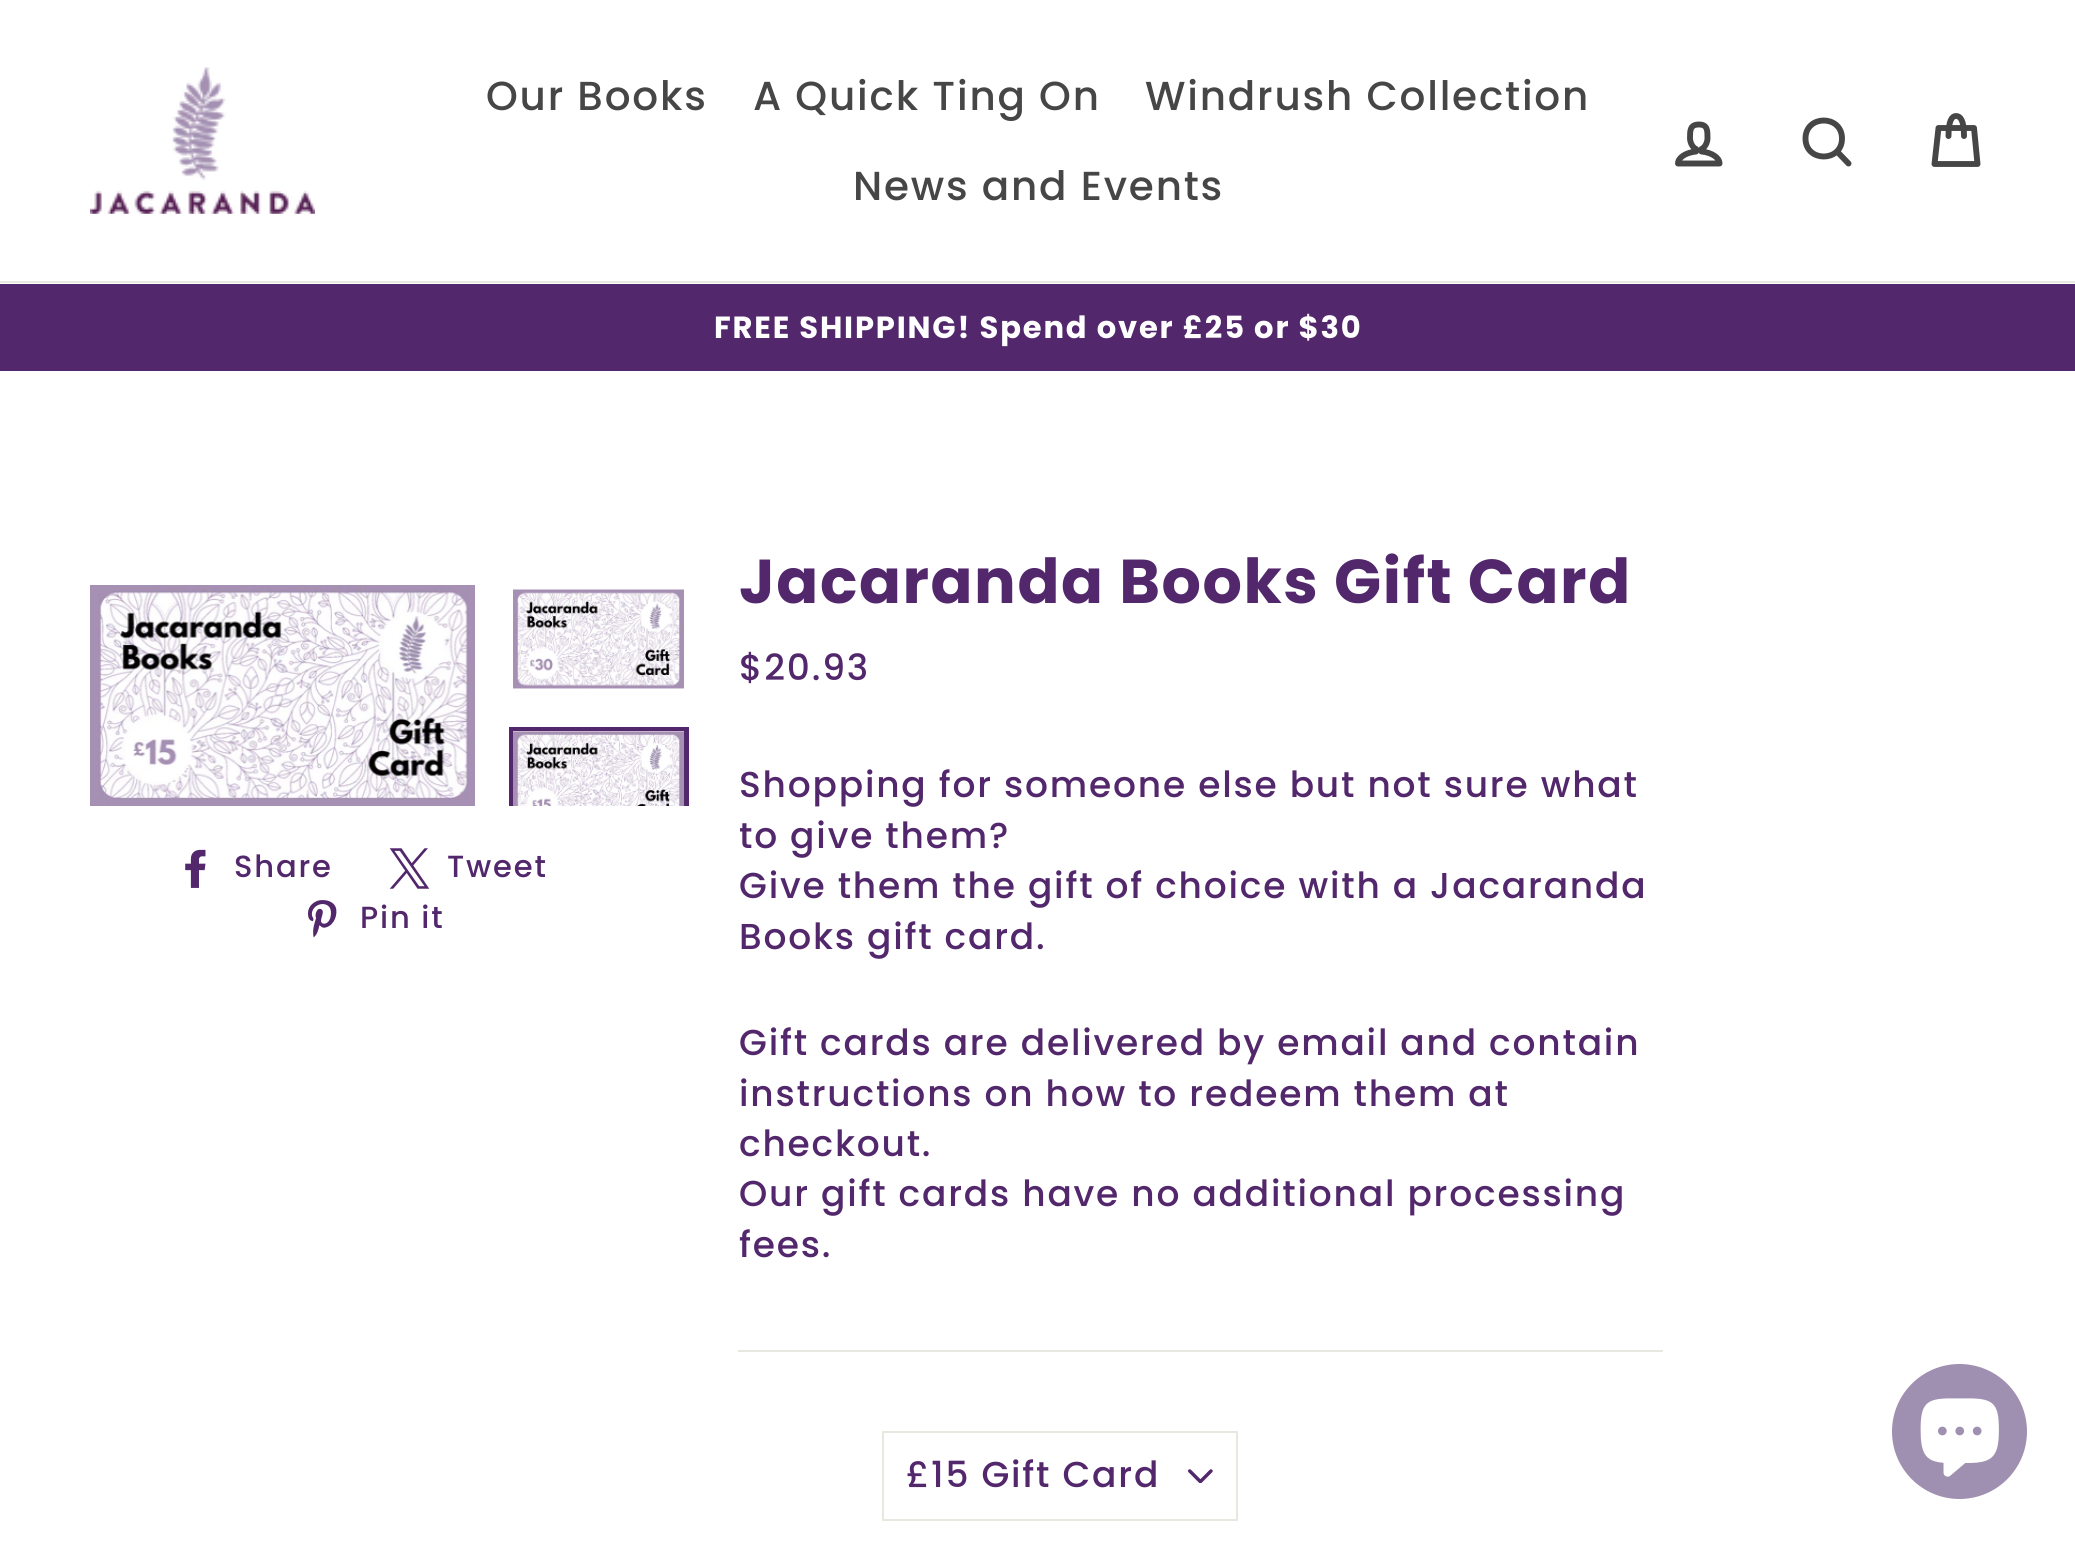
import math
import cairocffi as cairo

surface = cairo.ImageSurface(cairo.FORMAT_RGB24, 2075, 1545)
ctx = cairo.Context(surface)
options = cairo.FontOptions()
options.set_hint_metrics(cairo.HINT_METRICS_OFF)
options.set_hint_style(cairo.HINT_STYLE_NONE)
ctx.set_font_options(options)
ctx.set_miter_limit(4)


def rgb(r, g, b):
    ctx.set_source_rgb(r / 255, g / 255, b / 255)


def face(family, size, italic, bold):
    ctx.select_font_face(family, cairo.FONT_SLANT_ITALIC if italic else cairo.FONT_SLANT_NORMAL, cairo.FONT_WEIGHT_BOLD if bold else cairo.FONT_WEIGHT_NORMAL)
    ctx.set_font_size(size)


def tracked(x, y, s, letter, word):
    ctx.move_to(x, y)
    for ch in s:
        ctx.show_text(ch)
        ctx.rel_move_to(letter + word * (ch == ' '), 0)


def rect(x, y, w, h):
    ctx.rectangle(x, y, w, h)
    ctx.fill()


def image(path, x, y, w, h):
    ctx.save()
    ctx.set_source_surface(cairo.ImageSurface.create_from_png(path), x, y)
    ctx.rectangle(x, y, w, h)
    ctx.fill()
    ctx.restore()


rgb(255, 255, 255)
ctx.paint()
rgb(232, 232, 225)
rect(0, 281, 2075, 2)
image('image0.png', 90, 67, 225, 147)
face('Poppins Medium', 40.5, 0, 0)
rgb(70, 70, 70)
tracked(486, 110, 'Our Books', 1.8, 0)
tracked(753, 110, 'A Quick Ting On', 1.8, 0)
tracked(1145, 110, 'Windrush Collection', 1.8, 0)
tracked(853, 200, 'News and Events', 1.8, 0)
ctx.new_path()
ctx.move_to(1701.5, 151.5)
ctx.line_to(1701.5, 149)
ctx.curve_to(1705, 147.5, 1707.5, 142.5, 1707.5, 138)
ctx.curve_to(1707.5, 130.5, 1707.5, 124.5, 1699, 124.5)
ctx.curve_to(1690, 124.5, 1690, 130.5, 1690, 138)
ctx.curve_to(1690, 142.5, 1692.5, 147.5, 1696, 149)
ctx.line_to(1696, 151.5)
ctx.curve_to(1686, 152.5, 1678, 157.5, 1678, 163.5)
ctx.line_to(1719.5, 163.5)
ctx.curve_to(1719.5, 157.5, 1711.5, 152.5, 1701.5, 151.5)
ctx.close_path()
ctx.set_line_width(5.9)
ctx.set_line_cap(cairo.LINE_CAP_ROUND)
ctx.set_line_join(cairo.LINE_JOIN_ROUND)
ctx.stroke()
ctx.new_path()
ctx.move_to(1842, 138.5)
ctx.curve_to(1842, 162.5, 1805.5, 162.5, 1805.5, 138.5)
ctx.curve_to(1805.5, 114.5, 1842, 114.5, 1842, 138.5)
ctx.close_path()
ctx.move_to(1848.5, 163.5)
ctx.line_to(1837, 151.5)
ctx.stroke()
ctx.new_path()
ctx.move_to(1948.5, 136)
ctx.curve_to(1948.5, 120.5, 1952, 116, 1956, 116)
ctx.curve_to(1960.5, 116, 1964, 120.5, 1964, 136)
ctx.move_to(1938.5, 128)
ctx.line_to(1974, 128)
ctx.line_to(1977.5, 164)
ctx.line_to(1934.5, 164)
ctx.close_path()
ctx.stroke()
rgb(82, 39, 108)
rect(0, 284, 2075, 87)
face('Poppins', 30.6, 0, 1)
rgb(255, 255, 255)
tracked(714, 338, 'FREE SHIPPING! Spend over £25 or $30', 1.8, 0)
image('image1.png', 90, 585, 385, 221)
image('image2.png', 513, 589, 171, 100)
ctx.save()
ctx.rectangle(509, 585, 180, 221)
ctx.clip()
ctx.rectangle(511.5, 729.5, 175, 101)
rgb(82, 39, 108)
ctx.set_line_width(5)
ctx.set_line_cap(cairo.LINE_CAP_BUTT)
ctx.set_line_join(cairo.LINE_JOIN_MITER)
ctx.stroke()
ctx.restore()
rect(513, 731, 171, 1)
image('image3.png', 513, 731, 172, 75)
image('image4.png', 185, 849, 21, 39)
face('Poppins Medium', 30.6, 0, 0)
rgb(82, 39, 108)
tracked(234, 877, 'Share', 1.8, 0)
image('image5.png', 389, 848, 41, 41)
tracked(447, 877, 'Tweet', 1.8, 0)
image('image6.png', 308, 900, 29, 38)
tracked(360, 928, 'Pin it', 1.8, 0)
face('Poppins', 61.9, 0, 1)
tracked(739, 603, 'Jacaranda Books Gift Card', 1.55, 0)
face('Poppins Medium', 36, 0, 0)
tracked(739, 680, '$20.93', 1.8, 0)
tracked(739, 797, 'Shopping for someone else but not sure what', 1.8, 0)
tracked(739, 848, 'to give them?', 1.8, 0)
tracked(739, 898, 'Give them the gift of choice with a Jacaranda', 1.8, 0)
tracked(739, 949, 'Books gift card.', 1.8, 0)
tracked(739, 1055, 'Gift cards are delivered by email and contain', 1.8, 0)
tracked(739, 1106, 'instructions on how to redeem them at', 1.8, 0)
tracked(739, 1156, 'checkout.', 1.8, 0)
tracked(739, 1206, 'Our gift cards have no additional processing', 1.8, 0)
tracked(739, 1257, 'fees.', 1.8, 0)
rgb(232, 232, 225)
rect(738, 1350, 925, 2)
image('image7.png', 1188, 1469, 25, 14)
ctx.rectangle(883, 1432, 354, 88)
ctx.set_line_width(2)
ctx.set_line_cap(cairo.LINE_CAP_BUTT)
ctx.set_line_join(cairo.LINE_JOIN_MITER)
ctx.stroke()
rgb(82, 39, 108)
tracked(906, 1487, '£15 Gift Card', 1.8, 0)
rgb(159, 144, 177)
ctx.new_path()
ctx.arc(1959.5, 1431.5, 67.5, 0, 2 * math.pi)
ctx.fill()
image('image8.png', 1920, 1398, 79, 79)
surface.write_to_png('render.png')
